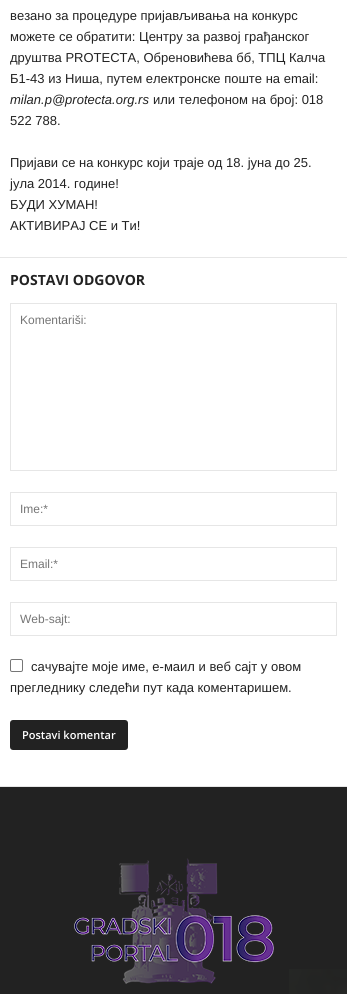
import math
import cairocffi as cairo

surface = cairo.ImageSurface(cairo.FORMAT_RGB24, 347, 994)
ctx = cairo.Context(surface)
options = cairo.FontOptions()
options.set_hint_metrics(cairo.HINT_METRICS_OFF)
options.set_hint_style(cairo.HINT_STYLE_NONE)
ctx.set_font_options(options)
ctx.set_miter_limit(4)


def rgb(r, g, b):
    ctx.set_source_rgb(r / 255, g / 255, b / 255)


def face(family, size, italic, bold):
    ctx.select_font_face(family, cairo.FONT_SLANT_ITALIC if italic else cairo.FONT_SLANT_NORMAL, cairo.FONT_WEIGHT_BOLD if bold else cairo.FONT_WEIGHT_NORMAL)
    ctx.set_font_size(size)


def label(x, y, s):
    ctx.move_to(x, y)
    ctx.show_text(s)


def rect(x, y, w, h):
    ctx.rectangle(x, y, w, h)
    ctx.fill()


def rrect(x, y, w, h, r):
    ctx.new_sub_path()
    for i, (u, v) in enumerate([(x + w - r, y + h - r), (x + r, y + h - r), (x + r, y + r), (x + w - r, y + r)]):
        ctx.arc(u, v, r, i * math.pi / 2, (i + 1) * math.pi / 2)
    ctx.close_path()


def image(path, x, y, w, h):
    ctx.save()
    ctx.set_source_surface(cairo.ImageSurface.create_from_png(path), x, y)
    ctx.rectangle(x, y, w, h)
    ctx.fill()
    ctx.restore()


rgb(255, 255, 255)
ctx.paint()
rgb(230, 230, 230)
rect(0, 786, 347, 1)
face('Liberation Sans', 13, 0, 0)
rgb(34, 34, 34)
label(10, 20, 'везано за процедуре пријављивања на конкурс')
label(10, 41, 'можете се обратити: Центру за развој грађанског')
label(10, 62, 'друштва PROTECTA, Обреновићева бб, ТПЦ Калча')
label(10, 83, 'Б1-43 из Ниша, путем електронске поште на еmail:')
face('Liberation Sans', 13, 1, 0)
label(10, 104, 'milan.p@protecta.org.rs')
face('Liberation Sans', 13, 0, 0)
label(153, 104, 'или телефоном на број: 018')
label(10, 125, '522 788.')
label(10, 167, 'Пријави се на конкурс који траје од 18. јуна до 25.')
label(10, 188, 'јула 2014. године!')
label(10, 209, 'БУДИ ХУМАН!')
label(10, 230, 'АКТИВИРАЈ СЕ и Ти!')
rgb(230, 230, 230)
rect(0, 257, 347, 1)
face('Open Sans', 14, 0, 1)
rgb(34, 34, 34)
label(10, 285, 'POSTAVI ODGOVOR')
ctx.rectangle(10.5, 303.5, 326, 167)
rgb(230, 230, 230)
ctx.set_line_width(1)
ctx.stroke()
face('Liberation Sans', 12, 0, 0)
rgb(117, 117, 117)
label(20, 324, 'Komentariši:')
ctx.rectangle(10.5, 492.5, 326, 33)
rgb(230, 230, 230)
ctx.stroke()
rgb(117, 117, 117)
label(20, 513, 'Ime:*')
ctx.rectangle(10.5, 547.5, 326, 33)
rgb(230, 230, 230)
ctx.stroke()
rgb(117, 117, 117)
label(20, 568, 'Email:*')
ctx.rectangle(10.5, 602.5, 326, 33)
rgb(230, 230, 230)
ctx.stroke()
rgb(117, 117, 117)
label(20, 623, 'Web-sajt:')
rrect(10.5, 659.5, 12, 12, 1.5)
rgb(118, 118, 118)
ctx.stroke()
face('Liberation Sans', 13, 0, 0)
rgb(34, 34, 34)
label(31, 671, 'сачувајте моје име, е-маил и веб сајт у овом')
label(10, 692, 'прегледнику следећи пут када коментаришем.')
rrect(10, 720, 118, 30, 3)
ctx.fill()
face('Open Sans SemiBold', 11, 0, 0)
rgb(255, 255, 255)
label(22, 739, 'Postavi komentar')
rgb(34, 34, 34)
rect(0, 787, 347, 207)
image('image0.png', 74, 858, 200, 126)
image('image1.png', 289, 969, 58, 25)
surface.write_to_png('render.png')
